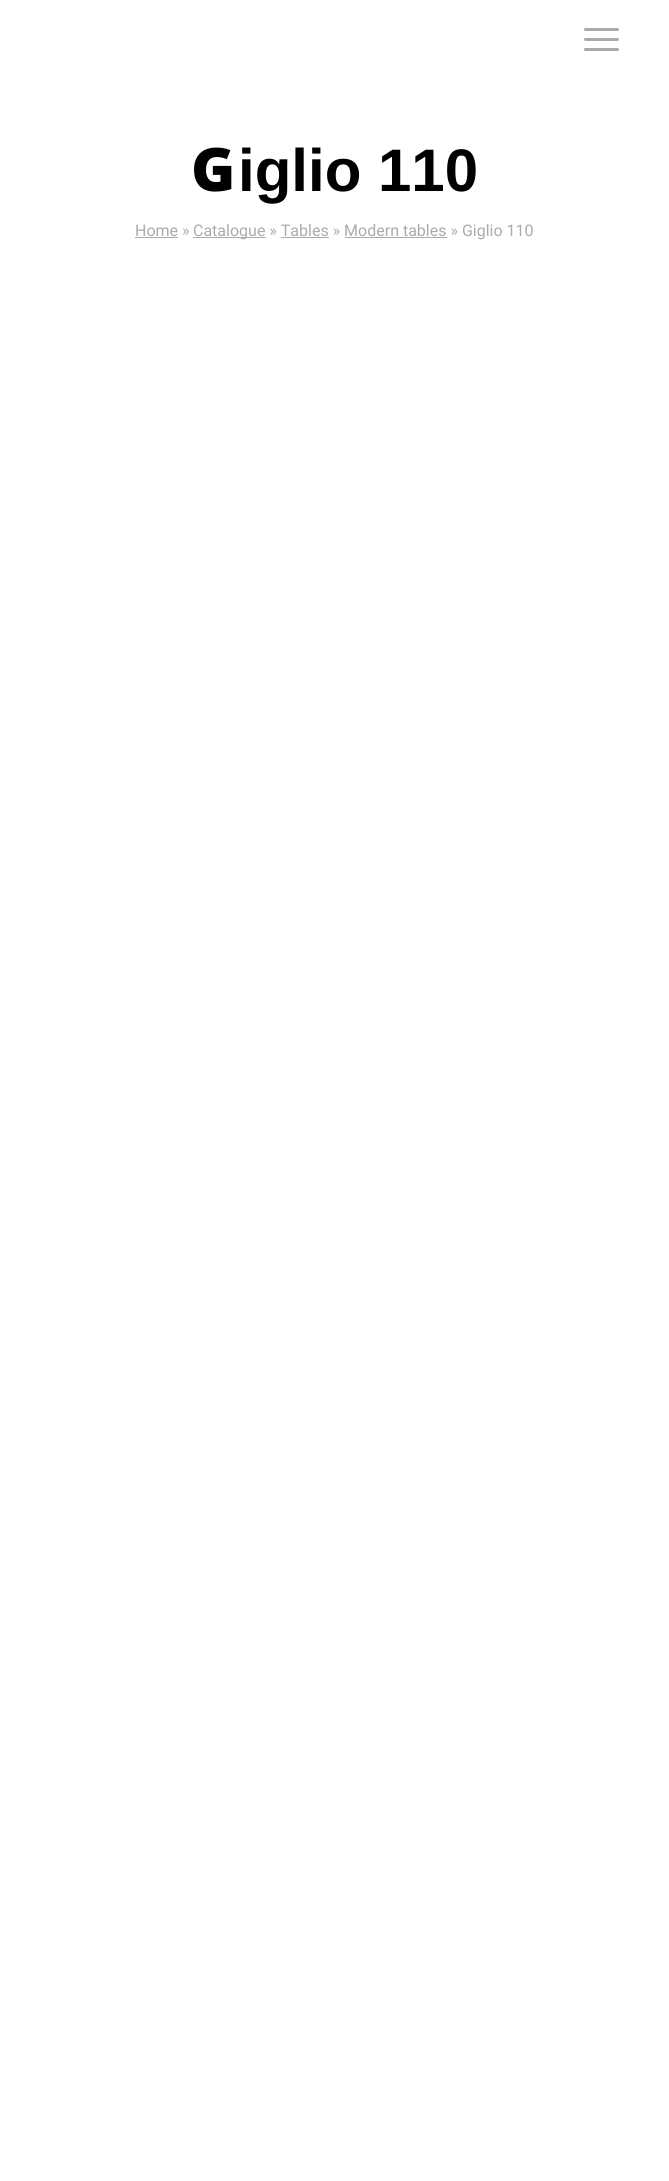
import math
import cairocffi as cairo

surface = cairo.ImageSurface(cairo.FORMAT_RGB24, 669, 2181)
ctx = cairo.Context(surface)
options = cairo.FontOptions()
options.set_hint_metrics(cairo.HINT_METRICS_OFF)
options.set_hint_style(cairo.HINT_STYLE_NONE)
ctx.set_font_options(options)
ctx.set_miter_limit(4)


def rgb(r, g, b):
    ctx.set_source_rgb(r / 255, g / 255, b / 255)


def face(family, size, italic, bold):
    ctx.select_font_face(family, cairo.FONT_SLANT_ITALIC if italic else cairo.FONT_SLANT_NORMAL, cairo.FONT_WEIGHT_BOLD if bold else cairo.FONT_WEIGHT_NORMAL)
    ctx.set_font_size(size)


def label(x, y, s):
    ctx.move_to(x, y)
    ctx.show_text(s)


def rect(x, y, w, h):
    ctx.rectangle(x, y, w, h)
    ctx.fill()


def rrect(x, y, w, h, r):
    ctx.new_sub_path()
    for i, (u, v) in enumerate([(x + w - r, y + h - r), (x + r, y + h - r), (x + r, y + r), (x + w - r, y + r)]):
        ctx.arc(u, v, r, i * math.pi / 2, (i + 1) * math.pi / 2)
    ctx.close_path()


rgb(255, 255, 255)
ctx.paint()
rgb(170, 170, 170)
rrect(584, 38, 35, 3, 1.5)
ctx.fill()
rrect(584, 28, 35, 3, 1.5)
ctx.fill()
rrect(584, 48, 35, 3, 1.5)
ctx.fill()
face('Noto Sans Black', 60, 0, 0)
rgb(0, 0, 0)
label(191, 191, 'G')
face('Liberation Sans', 60, 0, 1)
label(238, 191, 'iglio 110')
face('Roboto', 16, 0, 0)
rgb(171, 171, 171)
label(135, 236, 'Home »')
rect(135, 237, 43, 1)
rect(193, 237, 73, 1)
label(193, 236, 'Catalogue » Tables » Modern tables » Giglio 110')
rect(281, 237, 48, 1)
rect(345, 237, 102, 1)
surface.write_to_png('render.png')
